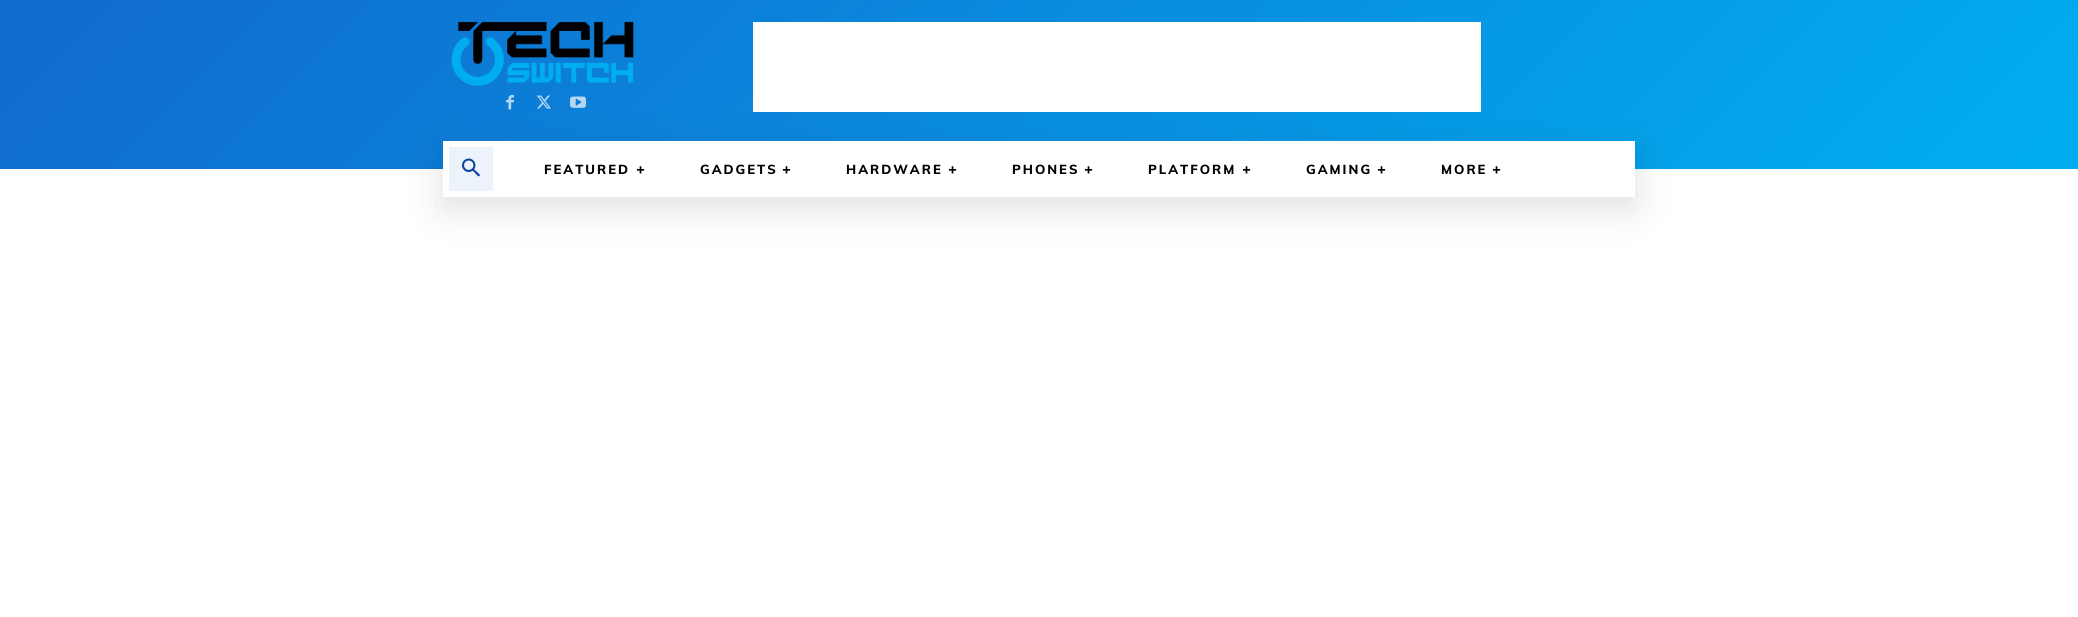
import math
import cairocffi as cairo

surface = cairo.ImageSurface(cairo.FORMAT_RGB24, 2078, 617)
ctx = cairo.Context(surface)
options = cairo.FontOptions()
options.set_hint_metrics(cairo.HINT_METRICS_OFF)
options.set_hint_style(cairo.HINT_STYLE_NONE)
ctx.set_font_options(options)
ctx.set_miter_limit(4)


def rgb(r, g, b):
    ctx.set_source_rgb(r / 255, g / 255, b / 255)


def face(family, size, italic, bold):
    ctx.select_font_face(family, cairo.FONT_SLANT_ITALIC if italic else cairo.FONT_SLANT_NORMAL, cairo.FONT_WEIGHT_BOLD if bold else cairo.FONT_WEIGHT_NORMAL)
    ctx.set_font_size(size)


def tracked(x, y, s, letter, word):
    ctx.move_to(x, y)
    for ch in s:
        ctx.show_text(ch)
        ctx.rel_move_to(letter + word * (ch == ' '), 0)


def rect(x, y, w, h):
    ctx.rectangle(x, y, w, h)
    ctx.fill()


def rrect(x, y, w, h, r):
    ctx.new_sub_path()
    for i, (u, v) in enumerate([(x + w - r, y + h - r), (x + r, y + h - r), (x + r, y + r), (x + w - r, y + r)]):
        ctx.arc(u, v, r, i * math.pi / 2, (i + 1) * math.pi / 2)
    ctx.close_path()


def soft_shadow(x, y, w, h, r, blur, alpha):
    ctx.push_group_with_content(cairo.CONTENT_ALPHA)
    ctx.set_operator(cairo.OPERATOR_SOURCE)
    for i in range(15, -16, -2):
        e = blur * i / 6
        if min(w, h) + 2 * e > 0:
            ctx.set_source_rgba(0, 0, 0, alpha * math.erfc((i - 1) / 8.5) / 2)
            rrect(x - e, y - e, w + 2 * e, h + 2 * e, max(0, min(r + e + blur * .6, min(w, h) / 2 + e)))
            ctx.fill()
    ctx.mask(ctx.pop_group())


def image(path, x, y, w, h):
    ctx.save()
    ctx.set_source_surface(cairo.ImageSurface.create_from_png(path), x, y)
    ctx.rectangle(x, y, w, h)
    ctx.fill()
    ctx.restore()


rgb(255, 255, 255)
ctx.paint()
gradient = cairo.LinearGradient(1601, 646, 477, -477)
gradient.add_color_stop_rgba(0, 0, 0.682, 0.937, 1)
gradient.add_color_stop_rgba(1, 0.067, 0.416, 0.808, 1)
ctx.set_source(gradient)
rect(0, 0, 2078, 169)
image('image0.png', 451, 21, 183, 65)
image('image1.png', 506, 94, 8, 16)
image('image2.png', 536, 95, 15, 14)
image('image3.png', 570, 96, 16, 12)
rgb(255, 255, 255)
rect(753, 22, 728, 90)
rgb(0, 0, 0)
soft_shadow(443, 153, 1192, 56, 0, 20, 0.12)
rgb(255, 255, 255)
rect(443, 141, 1192, 56)
rgb(236, 243, 251)
rect(449, 147, 44, 44)
image('image4.png', 462, 158, 18, 19)
face('Muli ExtraBold', 13, 0, 0)
rgb(0, 0, 0)
tracked(544, 174, 'FEATURED', 2, 0)
image('image5.png', 636, 166, 9, 8)
tracked(700, 174, 'GADGETS', 2, 0)
image('image5.png', 782, 166, 9, 8)
tracked(846, 174, 'HARDWARE', 2, 0)
image('image5.png', 948, 166, 9, 8)
tracked(1012, 174, 'PHONES', 2, 0)
image('image5.png', 1084, 166, 9, 8)
tracked(1148, 174, 'PLATFORM', 2, 0)
image('image5.png', 1242, 166, 9, 8)
tracked(1306, 174, 'GAMING', 2, 0)
image('image5.png', 1377, 166, 9, 8)
tracked(1441, 174, 'MORE', 2, 0)
image('image5.png', 1492, 166, 9, 8)
surface.write_to_png('render.png')
